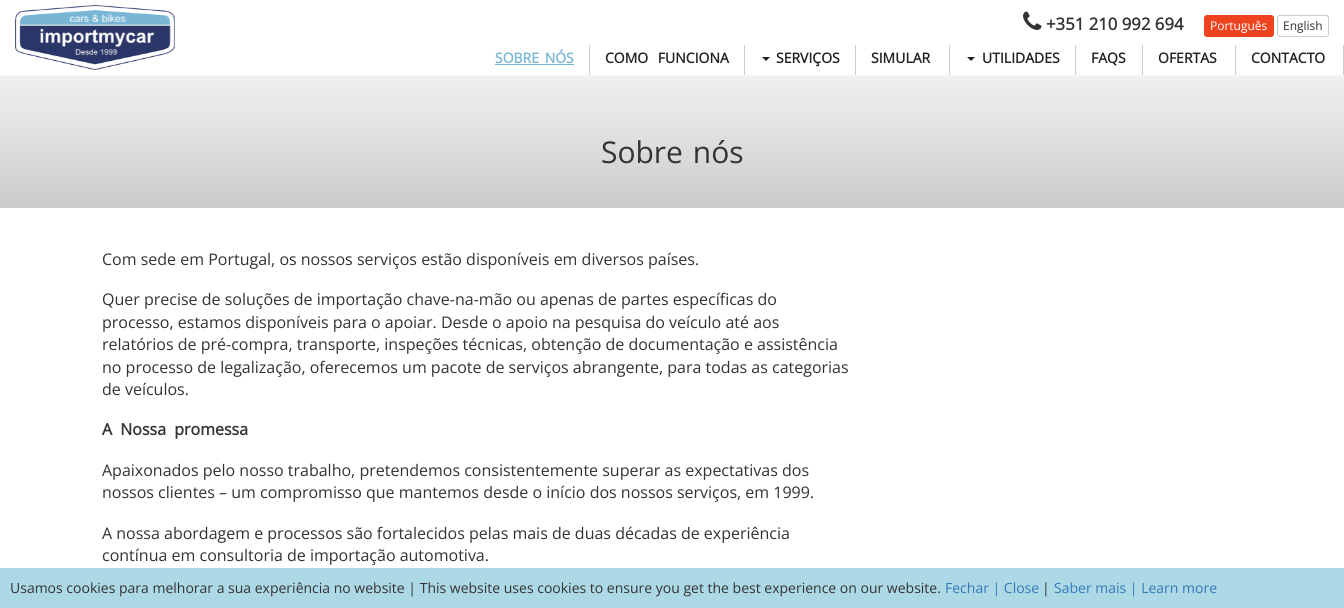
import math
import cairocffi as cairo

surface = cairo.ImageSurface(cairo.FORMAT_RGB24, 1344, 608)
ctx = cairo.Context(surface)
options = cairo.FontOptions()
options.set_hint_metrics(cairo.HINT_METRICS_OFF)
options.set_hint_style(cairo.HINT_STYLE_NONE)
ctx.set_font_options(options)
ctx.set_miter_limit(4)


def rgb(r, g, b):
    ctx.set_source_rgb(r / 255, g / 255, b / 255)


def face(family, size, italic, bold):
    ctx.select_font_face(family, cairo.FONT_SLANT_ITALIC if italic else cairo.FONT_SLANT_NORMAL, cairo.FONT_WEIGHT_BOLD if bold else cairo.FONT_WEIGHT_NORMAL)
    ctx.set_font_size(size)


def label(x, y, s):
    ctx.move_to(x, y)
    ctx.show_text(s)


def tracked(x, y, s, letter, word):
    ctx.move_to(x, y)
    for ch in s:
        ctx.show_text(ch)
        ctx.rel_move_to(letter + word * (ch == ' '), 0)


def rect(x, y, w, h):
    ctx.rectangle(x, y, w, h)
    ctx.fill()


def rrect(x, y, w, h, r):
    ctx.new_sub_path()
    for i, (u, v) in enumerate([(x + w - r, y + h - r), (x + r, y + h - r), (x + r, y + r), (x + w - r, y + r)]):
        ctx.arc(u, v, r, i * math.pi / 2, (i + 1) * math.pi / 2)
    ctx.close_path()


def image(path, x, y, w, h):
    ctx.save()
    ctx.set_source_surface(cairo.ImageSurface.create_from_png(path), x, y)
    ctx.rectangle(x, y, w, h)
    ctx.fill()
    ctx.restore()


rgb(255, 255, 255)
ctx.paint()
rgb(244, 244, 244)
rect(0, 75, 1344, 1)
image('image0.png', 15, 5, 160, 65)
image('image1.png', 1023, 11, 19, 19)
face('Open Sans', 16.75, 0, 1)
rgb(51, 51, 51)
label(1046, 30, '+351 210 992 694')
rgb(237, 67, 31)
rrect(1204.5, 15.5, 69, 21, 2.5)
ctx.fill_preserve()
ctx.set_line_width(1)
ctx.stroke()
face('Open Sans', 12, 0, 0)
rgb(255, 255, 255)
label(1210, 30, 'Português')
rrect(1277.5, 15.5, 51, 21, 2.5)
rgb(204, 204, 204)
ctx.stroke()
rgb(51, 51, 51)
label(1283, 30, 'English')
rgb(204, 204, 204)
rect(589, 45, 1, 30)
face('Open Sans', 14, 0, 1)
rgb(121, 182, 213)
tracked(495, 63, 'SOBRE NÓS', 0, 2)
rect(495, 64, 79, 1)
rgb(204, 204, 204)
rect(744, 45, 1, 30)
rgb(34, 34, 34)
tracked(605, 63, 'COMO FUNCIONA', 0, 6)
rgb(204, 204, 204)
rect(855, 45, 1, 30)
rgb(34, 34, 34)
ctx.new_path()
ctx.move_to(762, 57)
ctx.line_to(770, 57)
ctx.line_to(766, 61)
ctx.close_path()
ctx.fill()
label(776, 63, 'SERVIÇOS')
rgb(204, 204, 204)
rect(949, 45, 1, 30)
rgb(34, 34, 34)
label(871, 63, 'SIMULAR')
rgb(204, 204, 204)
rect(1075, 45, 1, 30)
rgb(34, 34, 34)
ctx.new_path()
ctx.move_to(967, 57)
ctx.line_to(975, 57)
ctx.line_to(971, 61)
ctx.close_path()
ctx.fill()
label(982, 63, 'UTILIDADES')
rgb(204, 204, 204)
rect(1142, 45, 1, 30)
rgb(34, 34, 34)
label(1091, 63, 'FAQS')
rgb(204, 204, 204)
rect(1235, 45, 1, 30)
rgb(34, 34, 34)
label(1158, 63, 'OFERTAS')
rgb(204, 204, 204)
rect(1343, 45, 1, 30)
rgb(34, 34, 34)
label(1251, 63, 'CONTACTO')
gradient = cairo.LinearGradient(672, 20, 672, 208)
gradient.add_color_stop_rgba(0, 1, 1, 1, 1)
gradient.add_color_stop_rgba(1, 0.8, 0.8, 0.8, 1)
ctx.set_source(gradient)
rect(0, 76, 1344, 132)
face('Open Sans', 30, 0, 0)
rgb(51, 51, 51)
tracked(601, 163, 'Sobre nós', 0, 2)
face('Open Sans', 16, 0, 0)
label(102, 265, 'Com sede em Portugal, os nossos serviços estão disponíveis em diversos países.')
label(102, 305, 'Quer precise de soluções de importação chave-na-mão ou apenas de partes específicas do')
label(102, 328, 'processo, estamos disponíveis para o apoiar. Desde o apoio na pesquisa do veículo até aos')
label(102, 350, 'relatórios de pré-compra, transporte, inspeções técnicas, obtenção de documentação e assistência')
label(102, 373, 'no processo de legalização, oferecemos um pacote de serviços abrangente, para todas as categorias')
label(102, 395, 'de veículos.')
face('Open Sans', 16, 0, 1)
tracked(102, 435, 'A Nossa promessa', 0, 4)
face('Open Sans', 16, 0, 0)
label(102, 476, 'Apaixonados pelo nosso trabalho, pretendemos consistentemente superar as expectativas dos')
label(102, 498, 'nossos clientes – um compromisso que mantemos desde o início dos nossos serviços, em 1999.')
label(102, 539, 'A nossa abordagem e processos são fortalecidos pelas mais de duas décadas de experiência')
label(102, 561, 'contínua em consultoria de importação automotiva.')
rgb(173, 216, 230)
rect(0, 568, 1344, 40)
face('Open Sans', 14, 0, 0)
rgb(51, 51, 51)
label(10, 593, 'Usamos cookies para melhorar a sua experiência no website | This website uses cookies to ensure you get the best experience on our website.')
rgb(51, 122, 183)
label(945, 593, 'Fechar | Close')
rgb(51, 51, 51)
label(1042, 593, '|')
rgb(51, 122, 183)
label(1054, 593, 'Saber mais | Learn more')
surface.write_to_png('render.png')
